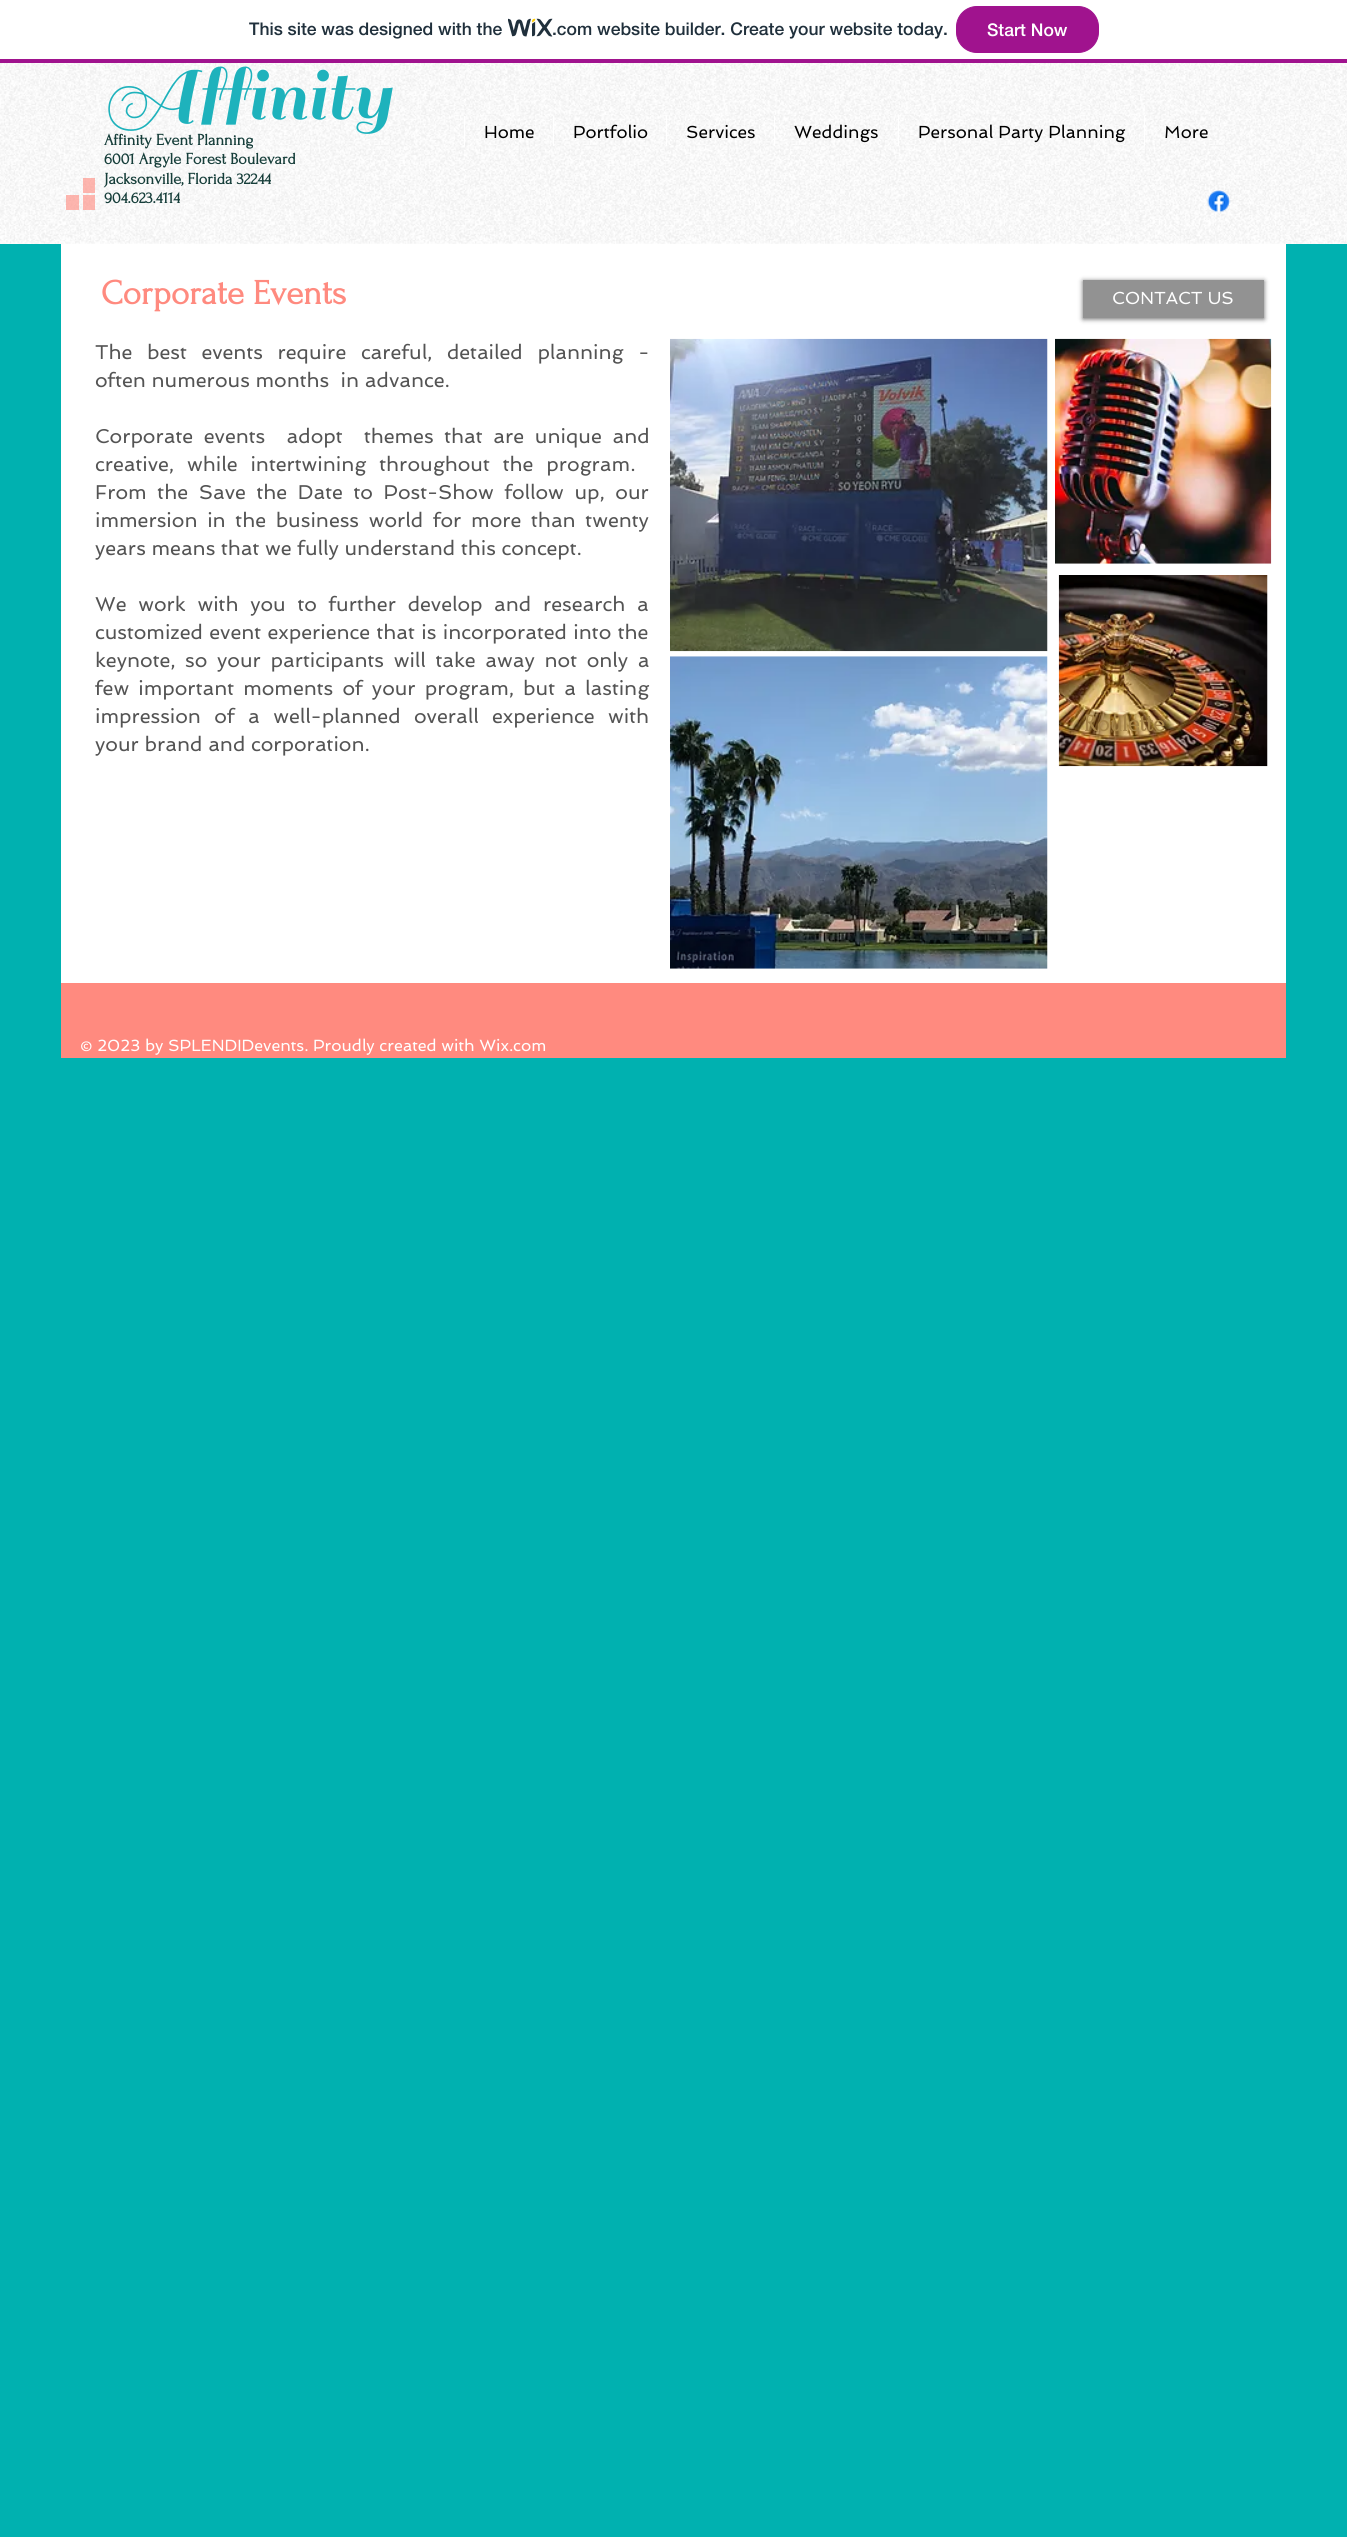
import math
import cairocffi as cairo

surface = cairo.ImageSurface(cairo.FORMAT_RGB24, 1347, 2537)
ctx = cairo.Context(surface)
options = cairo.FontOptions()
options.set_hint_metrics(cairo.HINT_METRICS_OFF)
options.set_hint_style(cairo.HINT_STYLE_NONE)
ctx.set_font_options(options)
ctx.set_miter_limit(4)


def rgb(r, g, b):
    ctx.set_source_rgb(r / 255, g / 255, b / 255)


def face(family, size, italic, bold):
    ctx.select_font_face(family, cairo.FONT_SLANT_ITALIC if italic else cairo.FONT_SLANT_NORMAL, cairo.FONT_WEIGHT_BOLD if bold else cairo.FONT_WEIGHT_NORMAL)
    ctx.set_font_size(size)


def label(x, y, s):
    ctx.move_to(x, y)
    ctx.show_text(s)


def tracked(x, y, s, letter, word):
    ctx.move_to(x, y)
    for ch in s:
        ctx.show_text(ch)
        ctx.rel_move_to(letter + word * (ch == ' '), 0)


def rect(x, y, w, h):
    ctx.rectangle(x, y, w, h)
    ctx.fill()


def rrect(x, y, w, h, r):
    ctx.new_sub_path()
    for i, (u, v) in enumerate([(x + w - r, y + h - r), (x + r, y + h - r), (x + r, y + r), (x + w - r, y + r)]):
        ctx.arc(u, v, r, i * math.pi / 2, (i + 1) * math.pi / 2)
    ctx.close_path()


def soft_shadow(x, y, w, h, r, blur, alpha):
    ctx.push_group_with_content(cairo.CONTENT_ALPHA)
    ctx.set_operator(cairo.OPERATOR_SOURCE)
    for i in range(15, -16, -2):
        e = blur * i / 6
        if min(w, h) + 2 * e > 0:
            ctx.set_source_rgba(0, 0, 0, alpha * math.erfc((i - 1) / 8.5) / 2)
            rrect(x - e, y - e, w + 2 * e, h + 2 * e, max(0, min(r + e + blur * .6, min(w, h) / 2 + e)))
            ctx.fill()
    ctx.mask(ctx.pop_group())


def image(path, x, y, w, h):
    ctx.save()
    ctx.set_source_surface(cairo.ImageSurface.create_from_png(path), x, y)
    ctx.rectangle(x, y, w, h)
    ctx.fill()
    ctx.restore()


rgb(0, 177, 176)
ctx.paint()
rgb(255, 255, 255)
rect(0, 0, 1347, 59)
rgb(160, 19, 142)
rect(0, 59, 1347, 4)
face('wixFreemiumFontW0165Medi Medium', 17.5, 0, 0)
rgb(32, 48, 60)
label(249, 35, 'This site was designed with the')
image('image0.png', 508, 18, 45, 19)
label(552, 35, '.com website builder. Create your website today.')
rgb(160, 19, 142)
rrect(956.5, 6.5, 142, 46, 20.5)
ctx.fill_preserve()
ctx.set_line_width(1)
ctx.stroke()
rgb(255, 255, 255)
label(987, 36, 'Start Now')
rect(0, 63, 1347, 181)
image('image1.png', 0, 63, 1347, 181)
face('Sail', 81, 0, 0)
rgb(30, 178, 188)
label(104, 119, 'Affinity')
face('Forum', 16.25, 0, 1)
rgb(22, 62, 58)
label(104, 145, 'Affinity Event Planning')
label(104, 164, '6001 Argyle Forest Boulevard')
label(104, 184, 'Jacksonville, Florida 32244')
label(104, 203, '904.623.4114')
rgb(255, 255, 255)
rect(464, 116, 1, 30)
face('Spinnaker', 17.5, 0, 0)
rgb(0, 0, 0)
label(484, 138, 'Home')
rgb(255, 255, 255)
rect(553, 116, 1, 30)
rgb(0, 0, 0)
label(573, 138, 'Portfolio')
rgb(255, 255, 255)
rect(666, 116, 1, 30)
rgb(0, 0, 0)
label(686, 138, 'Services')
rgb(255, 255, 255)
rect(774, 116, 1, 30)
rgb(0, 0, 0)
label(794, 138, 'Weddings')
rgb(255, 255, 255)
rect(898, 116, 1, 30)
rgb(0, 0, 0)
label(918, 138, 'Personal Party Planning')
rgb(255, 255, 255)
rect(1144, 116, 1, 30)
rgb(0, 0, 0)
label(1164, 138, 'More')
ctx.set_source_rgba(1, 0.541, 0.498, 0.61)
rect(83, 178, 12, 15)
rect(66, 195, 13, 15)
rect(83, 195, 12, 15)
image('image2.png', 1207, 190, 24, 23)
rgb(255, 255, 255)
rect(61, 244, 1225, 739)
face('Forum', 35, 0, 1)
rgb(255, 138, 127)
label(101, 304, 'Corporate Events')
rgb(0, 0, 0)
soft_shadow(1083, 281, 181, 38, 0, 2.5, 0.6)
rgb(146, 146, 146)
rect(1083, 280, 181, 38)
face('Spinnaker', 17.5, 0, 0)
rgb(255, 255, 255)
label(1112, 304, 'CONTACT US')
face('Spinnaker', 20, 0, 0)
rgb(84, 84, 84)
tracked(95, 359, 'The best events require careful, detailed planning -', 0, 9)
label(95, 387, 'often numerous months  in advance.')
tracked(95, 443, 'Corporate events  adopt  themes that are unique and', 0, 5)
tracked(95, 471, 'creative, while intertwining throughout the program.', 0, 7.25)
tracked(95, 499, 'From the Save the Date to Post-Show follow up, our', 0, 5)
tracked(95, 527, 'immersion in the business world for more than twenty', 0, 4)
label(95, 555, 'years means that we fully understand this concept.')
tracked(95, 611, 'We work with you to further develop and research a', 0, 6)
tracked(95, 639, 'customized event experience that is incorporated into the', 0, 0.75)
tracked(95, 667, 'keynote, so your participants will take away not only a', 0, 4)
tracked(95, 695, 'few important moments of your program, but a lasting', 0, 3.5)
tracked(95, 723, 'impression of a well-planned overall experience with', 0, 7.75)
label(95, 751, 'your brand and corporation.')
image('image3.png', 670, 338, 378, 314)
image('image4.png', 1055, 338, 217, 226)
image('image5.png', 670, 656, 378, 313)
image('image6.png', 1058, 575, 210, 192)
face('Forum', 24, 0, 1)
rgb(165, 132, 73)
label(1084, 731, 'Roulette')
rgb(255, 138, 127)
rect(61, 983, 1225, 75)
face('Spinnaker', 16.25, 0, 0)
rgb(255, 255, 255)
label(80, 1051, '© 2023 by SPLENDIDevents. Proudly created with Wix.com')
surface.write_to_png('render.png')
